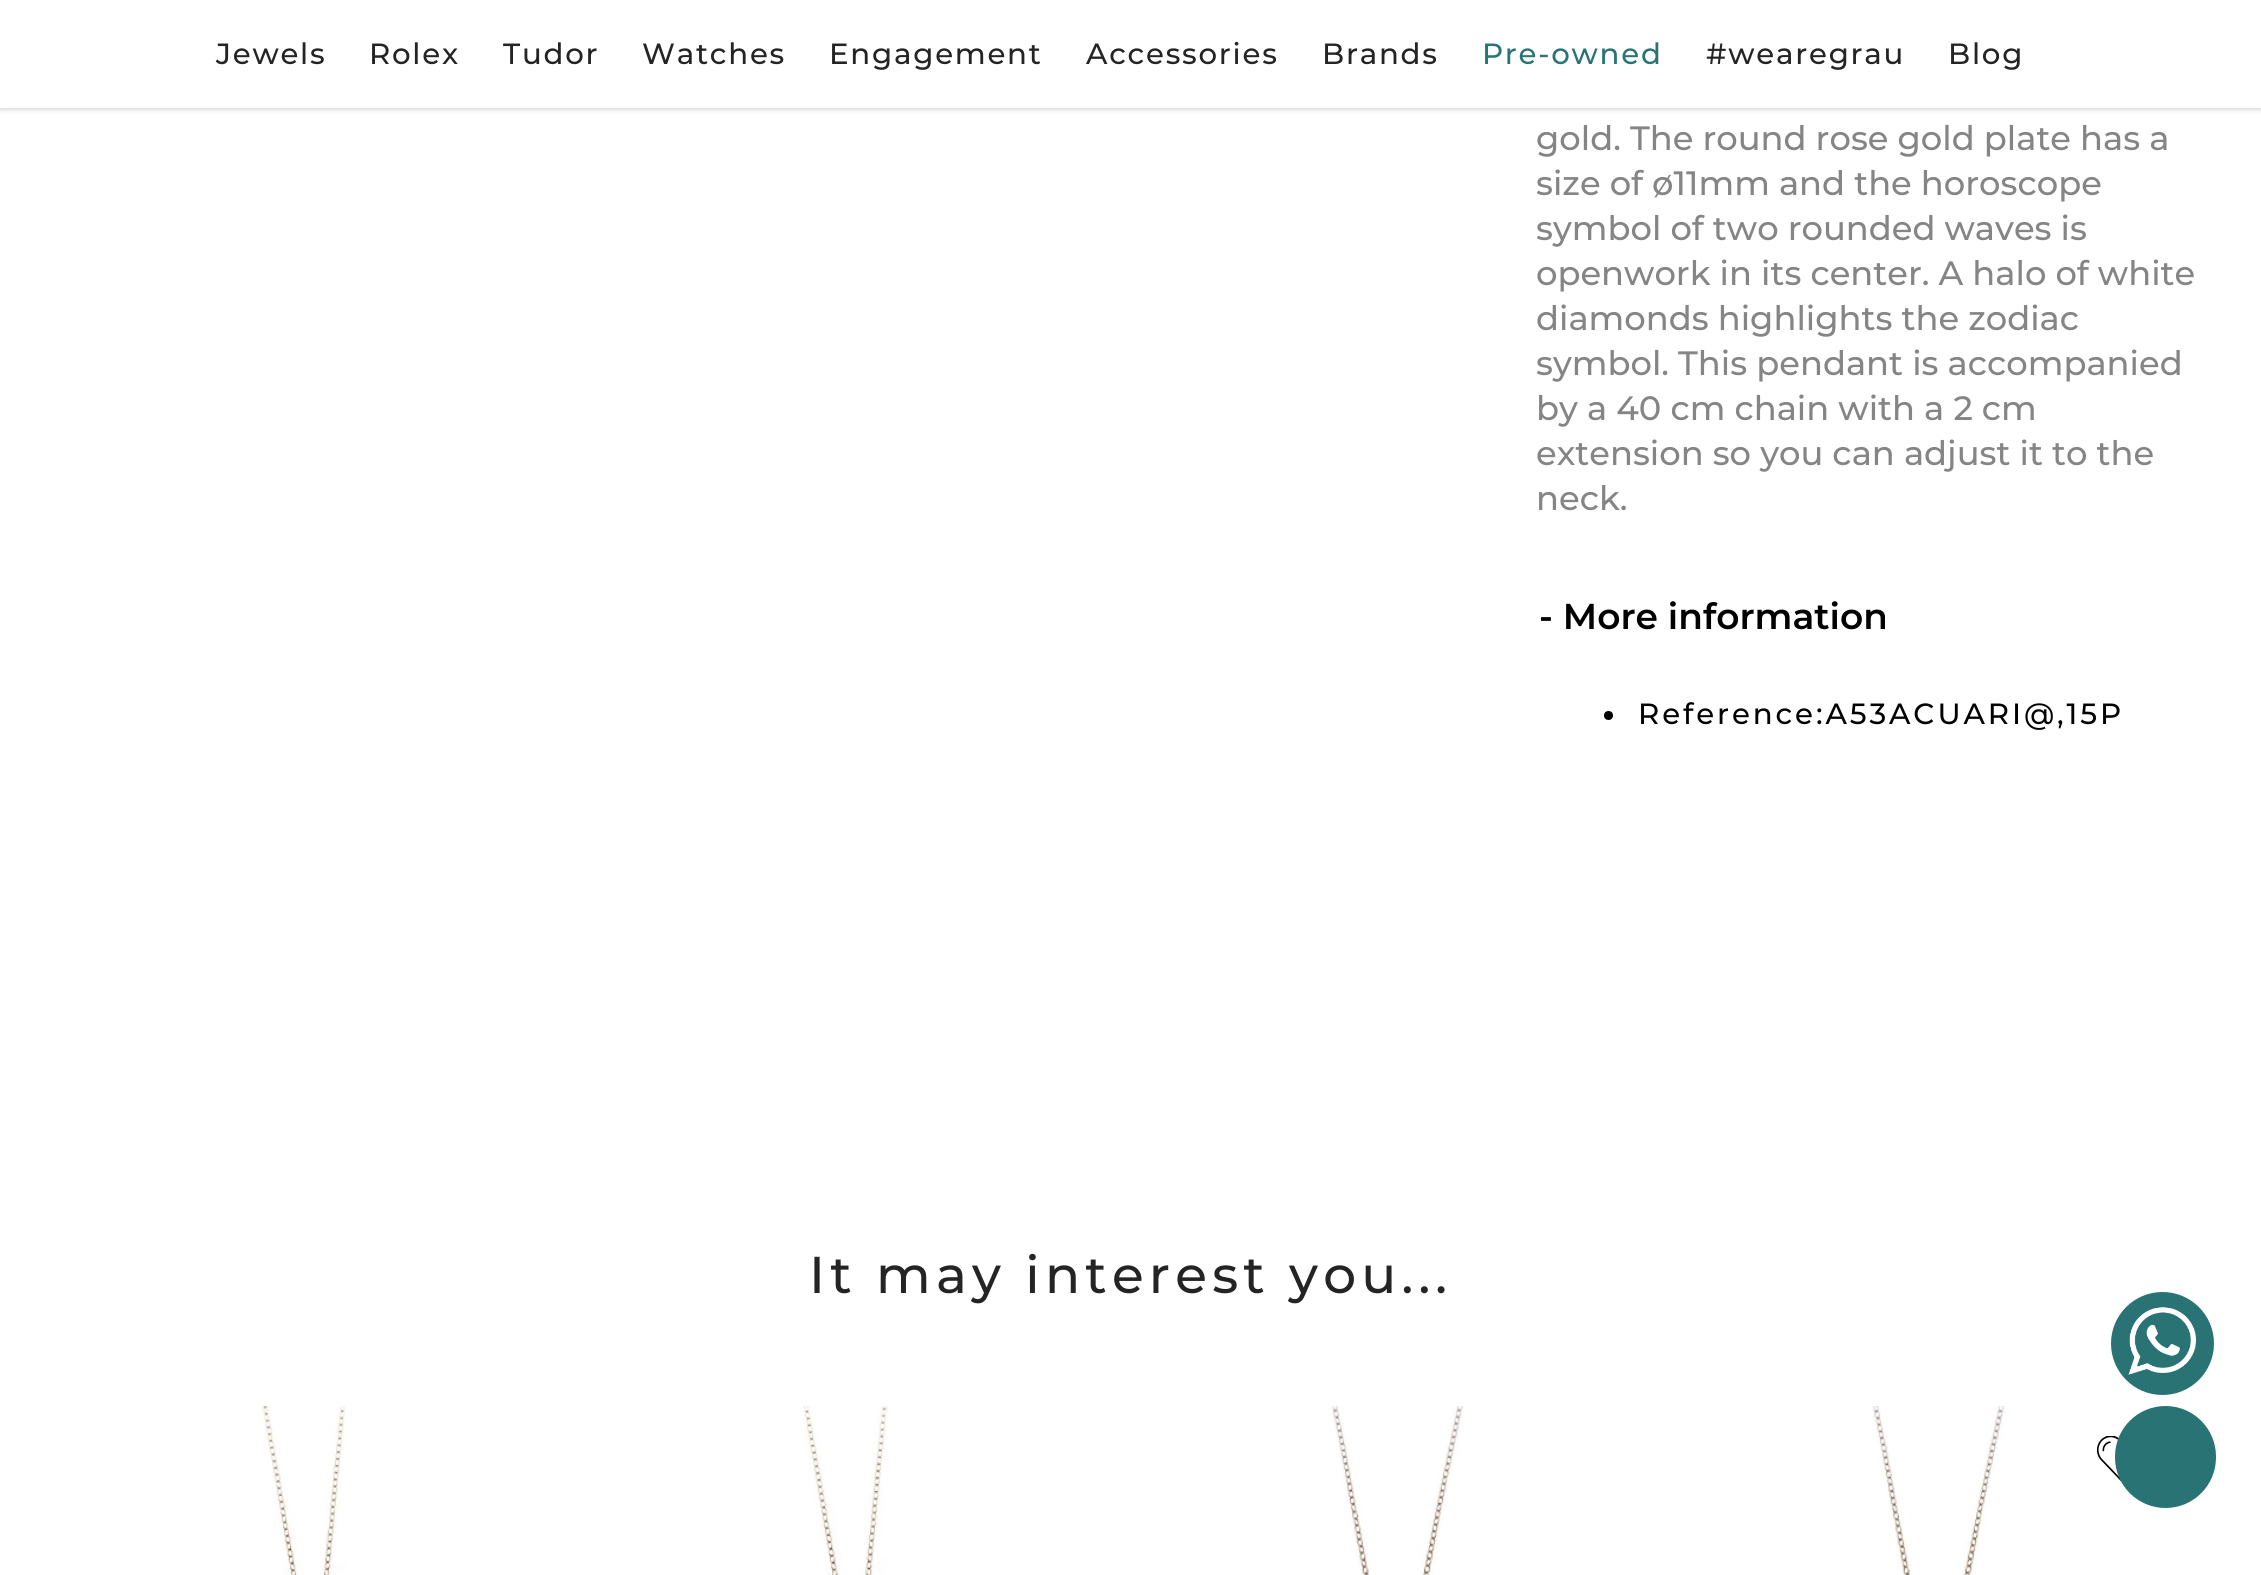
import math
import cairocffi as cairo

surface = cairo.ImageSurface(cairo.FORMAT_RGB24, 2261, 1575)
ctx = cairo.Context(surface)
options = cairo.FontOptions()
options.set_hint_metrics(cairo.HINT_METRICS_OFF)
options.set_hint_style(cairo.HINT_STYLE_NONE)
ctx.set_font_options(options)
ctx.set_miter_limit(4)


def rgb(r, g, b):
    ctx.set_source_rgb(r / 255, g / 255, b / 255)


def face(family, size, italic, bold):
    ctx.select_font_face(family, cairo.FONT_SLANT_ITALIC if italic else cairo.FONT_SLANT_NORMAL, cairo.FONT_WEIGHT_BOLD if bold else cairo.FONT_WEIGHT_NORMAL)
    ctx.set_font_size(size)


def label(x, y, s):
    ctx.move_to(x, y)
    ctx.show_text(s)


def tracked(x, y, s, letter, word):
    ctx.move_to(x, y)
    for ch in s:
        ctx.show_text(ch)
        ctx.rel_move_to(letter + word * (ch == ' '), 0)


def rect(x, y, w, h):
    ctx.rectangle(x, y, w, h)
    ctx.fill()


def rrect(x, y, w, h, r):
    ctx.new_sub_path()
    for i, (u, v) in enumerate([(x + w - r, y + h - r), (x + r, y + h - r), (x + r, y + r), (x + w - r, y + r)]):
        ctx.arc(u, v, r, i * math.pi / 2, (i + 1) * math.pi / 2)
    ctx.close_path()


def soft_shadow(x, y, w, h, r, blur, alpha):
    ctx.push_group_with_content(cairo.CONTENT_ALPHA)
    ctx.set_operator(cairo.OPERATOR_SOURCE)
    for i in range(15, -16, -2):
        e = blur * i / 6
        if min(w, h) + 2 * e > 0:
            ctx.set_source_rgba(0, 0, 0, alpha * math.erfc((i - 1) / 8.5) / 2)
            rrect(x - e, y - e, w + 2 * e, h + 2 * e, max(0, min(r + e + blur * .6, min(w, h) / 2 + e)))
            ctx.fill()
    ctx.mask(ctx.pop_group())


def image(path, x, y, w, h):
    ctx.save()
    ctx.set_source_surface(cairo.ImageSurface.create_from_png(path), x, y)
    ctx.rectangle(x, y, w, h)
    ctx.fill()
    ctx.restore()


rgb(255, 255, 255)
ctx.paint()
rgb(0, 0, 0)
soft_shadow(0, 2, 2261, 108, 0, 2, 0.15)
rgb(255, 255, 255)
rect(0, 0, 2261, 108)
face('Montserrat Medium', 29.25, 0, 0)
rgb(36, 36, 36)
tracked(216, 64, 'Jewels', 1.75, 0)
tracked(369, 64, 'Rolex', 1.75, 0)
tracked(503, 64, 'Tudor', 1.75, 0)
tracked(642, 64, 'Watches', 1.75, 0)
tracked(829, 64, 'Engagement', 1.75, 0)
tracked(1086, 64, 'Accessories', 1.75, 0)
tracked(1322, 64, 'Brands', 1.75, 0)
rgb(42, 116, 117)
tracked(1482, 64, 'Pre-owned', 1.75, 0)
rgb(36, 36, 36)
tracked(1706, 64, '#wearegrau', 1.75, 0)
tracked(1948, 64, 'Blog', 1.75, 0)
rgb(42, 115, 117)
ctx.new_path()
ctx.arc(2162.5, 1343.5, 51.5, 0, 2 * math.pi)
ctx.fill()
image('image0.png', 2128, 1307, 68, 68)
face('Montserrat Medium', 33.75, 0, 0)
rgb(133, 133, 133)
label(1536, 150, 'gold. The round rose gold plate has a')
label(1536, 195, 'size of ø11mm and the horoscope')
label(1536, 240, 'symbol of two rounded waves is')
label(1536, 285, 'openwork in its center. A halo of white')
label(1536, 330, 'diamonds highlights the zodiac')
label(1536, 375, 'symbol. This pendant is accompanied')
label(1536, 420, 'by a 40 cm chain with a 2 cm')
label(1536, 465, 'extension so you can adjust it to the')
label(1536, 510, 'neck.')
face('Montserrat SemiBold', 36, 0, 0)
rgb(0, 0, 0)
label(1539, 629, '- More information')
ctx.new_path()
ctx.arc(1608.5, 715.5, 4.5, 0, 2 * math.pi)
ctx.fill()
face('Montserrat Medium', 29.25, 0, 0)
tracked(1638, 724, 'Reference:A53ACUARI@,15P', 2.9, 0)
face('Montserrat Medium', 51.75, 0, 0)
rgb(36, 36, 36)
tracked(809, 1293, 'It may interest you...', 5.2, 0)
image('image1.png', 261, 1406, 85, 169)
image('image2.png', 803, 1406, 86, 169)
image('image3.png', 1331, 1406, 133, 169)
image('image4.png', 1872, 1406, 134, 169)
image('image5.png', 2097, 1436, 24, 45)
rgb(42, 115, 117)
rrect(2115, 1406, 101, 102, 50.5)
ctx.fill()
surface.write_to_png('render.png')
